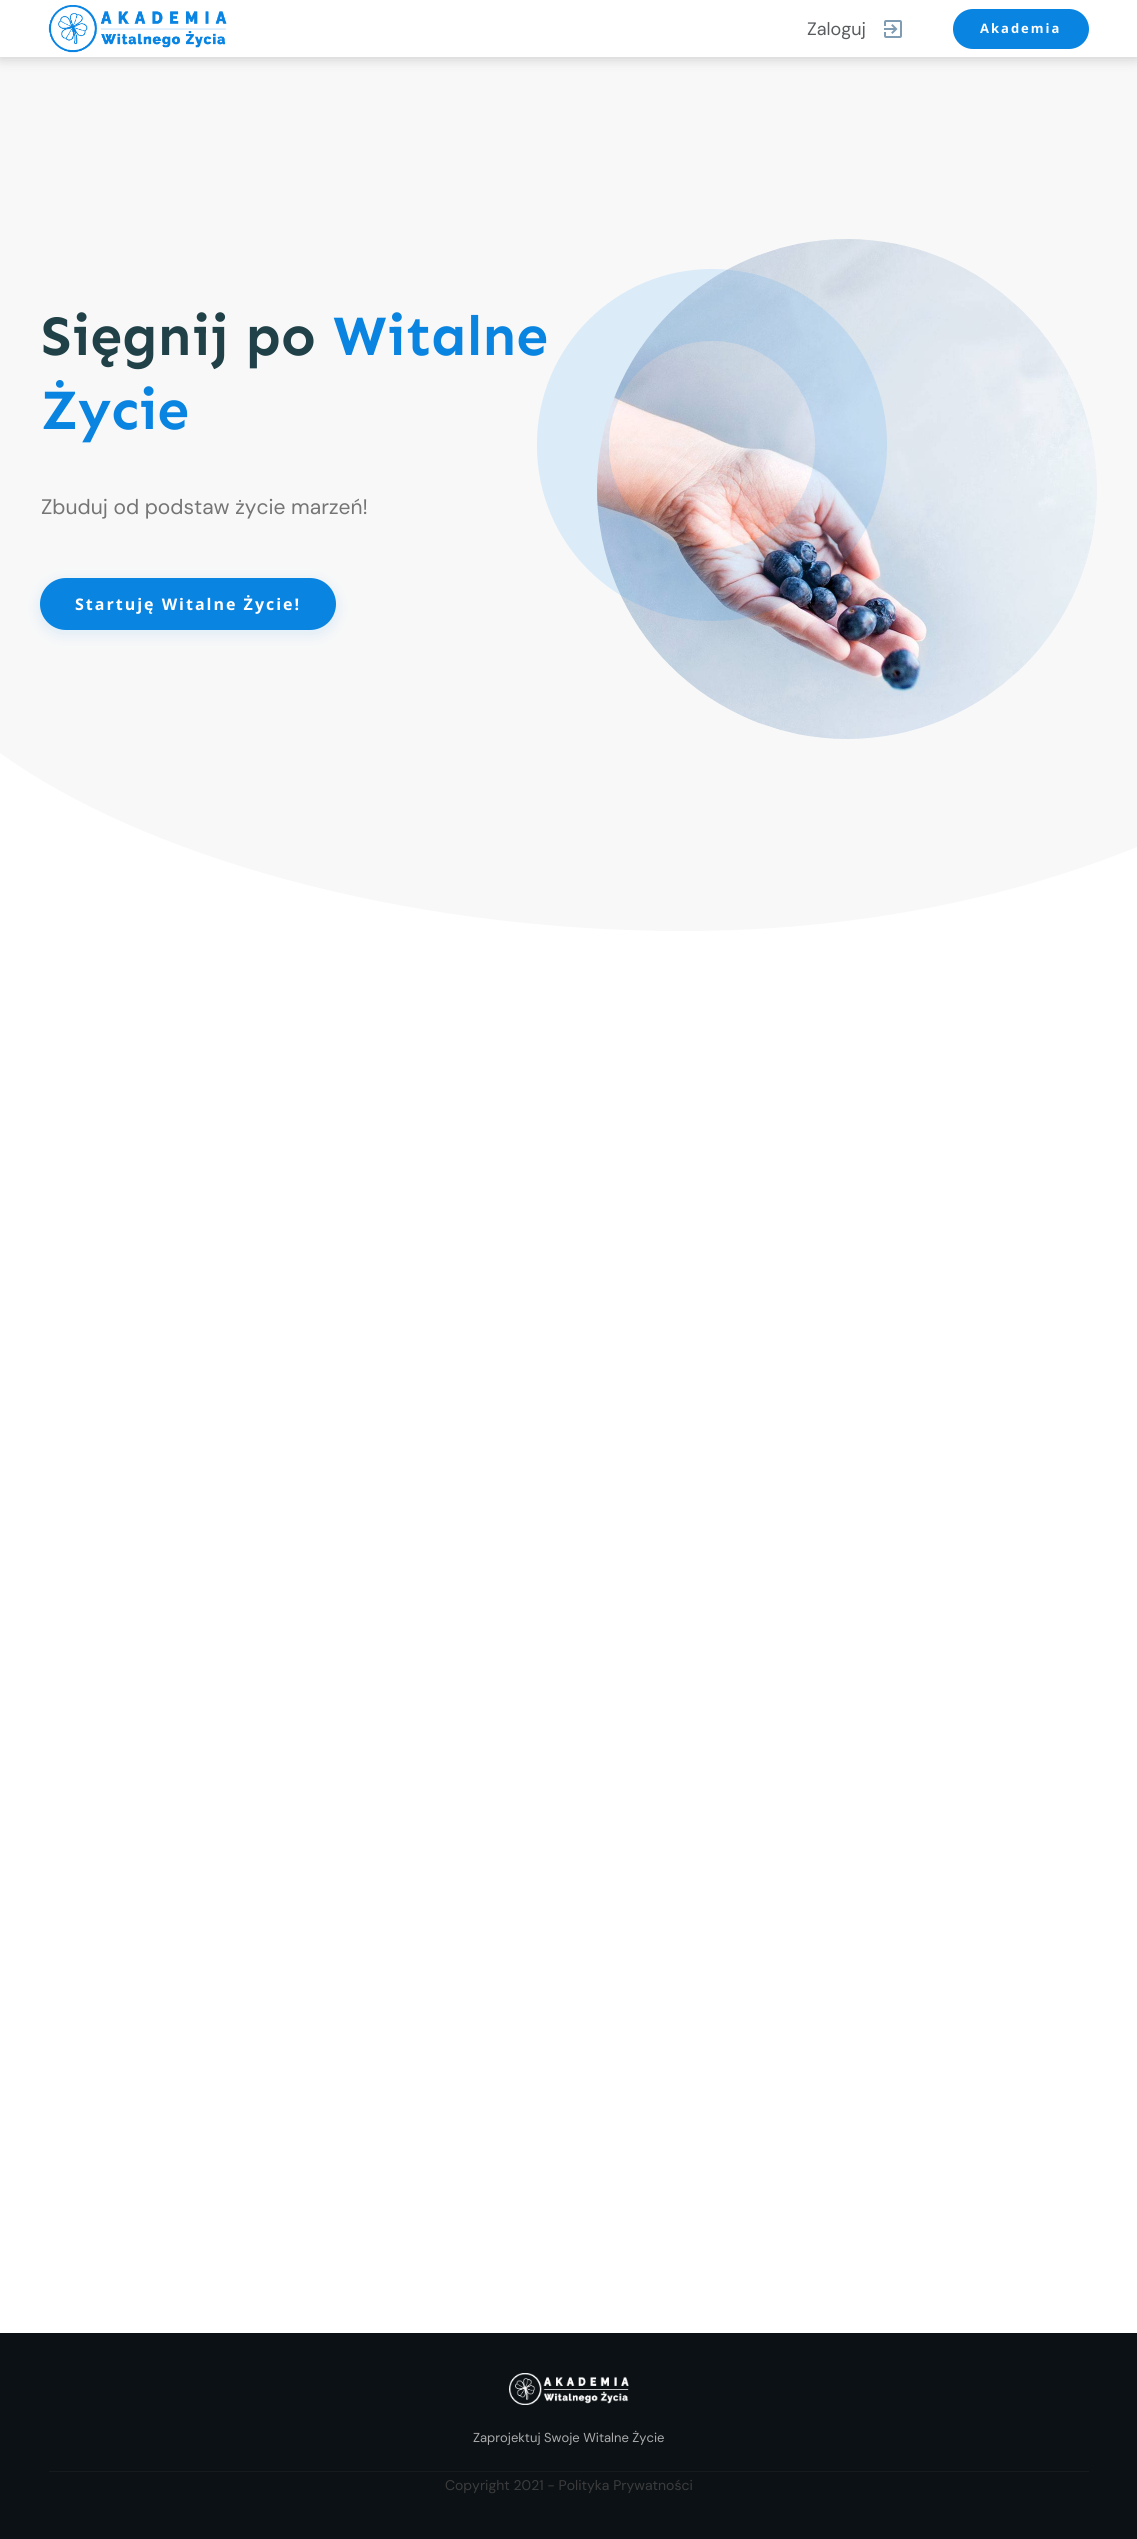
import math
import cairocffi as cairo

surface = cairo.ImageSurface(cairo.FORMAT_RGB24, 1137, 2539)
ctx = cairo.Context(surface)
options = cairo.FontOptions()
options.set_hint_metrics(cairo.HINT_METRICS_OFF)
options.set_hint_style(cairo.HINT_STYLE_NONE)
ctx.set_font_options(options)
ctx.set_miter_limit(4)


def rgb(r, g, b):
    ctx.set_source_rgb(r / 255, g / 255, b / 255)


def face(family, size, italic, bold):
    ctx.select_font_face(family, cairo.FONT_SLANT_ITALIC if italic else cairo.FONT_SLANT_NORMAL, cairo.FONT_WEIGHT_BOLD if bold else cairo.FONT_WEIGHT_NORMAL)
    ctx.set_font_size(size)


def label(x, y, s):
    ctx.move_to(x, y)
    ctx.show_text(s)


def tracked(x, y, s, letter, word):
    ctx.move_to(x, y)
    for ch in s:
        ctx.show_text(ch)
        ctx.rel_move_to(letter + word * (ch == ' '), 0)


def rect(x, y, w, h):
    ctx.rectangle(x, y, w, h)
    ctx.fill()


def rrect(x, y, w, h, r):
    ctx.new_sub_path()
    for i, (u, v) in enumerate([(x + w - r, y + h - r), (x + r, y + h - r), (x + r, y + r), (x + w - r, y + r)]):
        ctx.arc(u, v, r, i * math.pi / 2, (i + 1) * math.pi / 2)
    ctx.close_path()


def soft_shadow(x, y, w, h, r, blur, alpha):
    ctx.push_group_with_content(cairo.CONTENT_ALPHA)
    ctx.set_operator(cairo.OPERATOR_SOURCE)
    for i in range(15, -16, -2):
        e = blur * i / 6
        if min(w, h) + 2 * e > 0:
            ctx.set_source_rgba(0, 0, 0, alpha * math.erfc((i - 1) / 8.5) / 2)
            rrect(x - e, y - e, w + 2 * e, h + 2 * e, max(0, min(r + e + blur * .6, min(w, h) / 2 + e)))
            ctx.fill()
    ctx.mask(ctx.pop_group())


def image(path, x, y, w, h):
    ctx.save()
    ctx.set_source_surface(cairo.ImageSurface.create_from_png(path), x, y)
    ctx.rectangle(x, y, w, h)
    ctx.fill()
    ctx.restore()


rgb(255, 255, 255)
ctx.paint()
rgb(248, 248, 248)
rect(0, 57, 1137, 874)
rgb(0, 0, 0)
soft_shadow(0, 1, 1137, 57, 0, 6.5, 0.2)
rgb(255, 255, 255)
rect(0, 0, 1137, 57)
image('image0.png', 48, 5, 179, 48)
face('DM Sans', 18, 0, 0)
rgb(89, 92, 95)
label(807, 35, 'Zaloguj')
image('image1.png', 884, 20, 18, 18)
rgb(9, 132, 225)
rrect(953, 9, 136, 40, 20)
ctx.fill()
face('Open Sans', 13, 0, 1)
rgb(255, 255, 255)
tracked(980, 33, 'Akademia', 2, 0)
ctx.new_path()
ctx.move_to(1137, 962)
ctx.line_to(1137, 847)
ctx.curve_to(1011, 898, 855, 931, 684, 931)
ctx.curve_to(397, 931, 138, 853, 0, 753)
ctx.line_to(0, 962)
ctx.close_path()
ctx.fill()
face('Sen', 57, 0, 1)
rgb(32, 65, 71)
label(41, 355, 'Sięgnij po')
rgb(9, 132, 225)
label(333, 355, 'Witalne')
label(41, 429, 'Życie')
face('DM Sans', 21, 0, 0)
rgb(117, 117, 117)
label(41, 514, 'Zbuduj od podstaw życie marzeń!')
rgb(0, 135, 245)
soft_shadow(40, 582, 296, 52, 26, 8, 0.12)
rgb(9, 132, 225)
rrect(40, 578, 296, 52, 26)
ctx.fill()
face('Open Sans', 16, 0, 1)
rgb(255, 255, 255)
tracked(75, 610, 'Startuję Witalne Życie!', 2, 0)
image('image2.png', 597, 239, 500, 500)
rrect(573, 305, 278, 280, 139)
ctx.set_source_rgba(0, 0.529, 0.961, 0.12)
ctx.set_line_width(72)
ctx.stroke()
rgb(12, 17, 21)
rect(0, 2333, 1137, 206)
image('image3.png', 509, 2373, 120, 32)
face('DM Sans', 13, 0, 0)
rgb(171, 171, 171)
label(473, 2442, 'Zaprojektuj Swoje Witalne Życie')
rgb(22, 27, 30)
rect(49, 2471, 1040, 1)
face('DM Sans', 14, 0, 0)
rgb(59, 59, 59)
label(445, 2490, 'Copyright 2021 - Polityka Prywatności')
surface.write_to_png('render.png')
